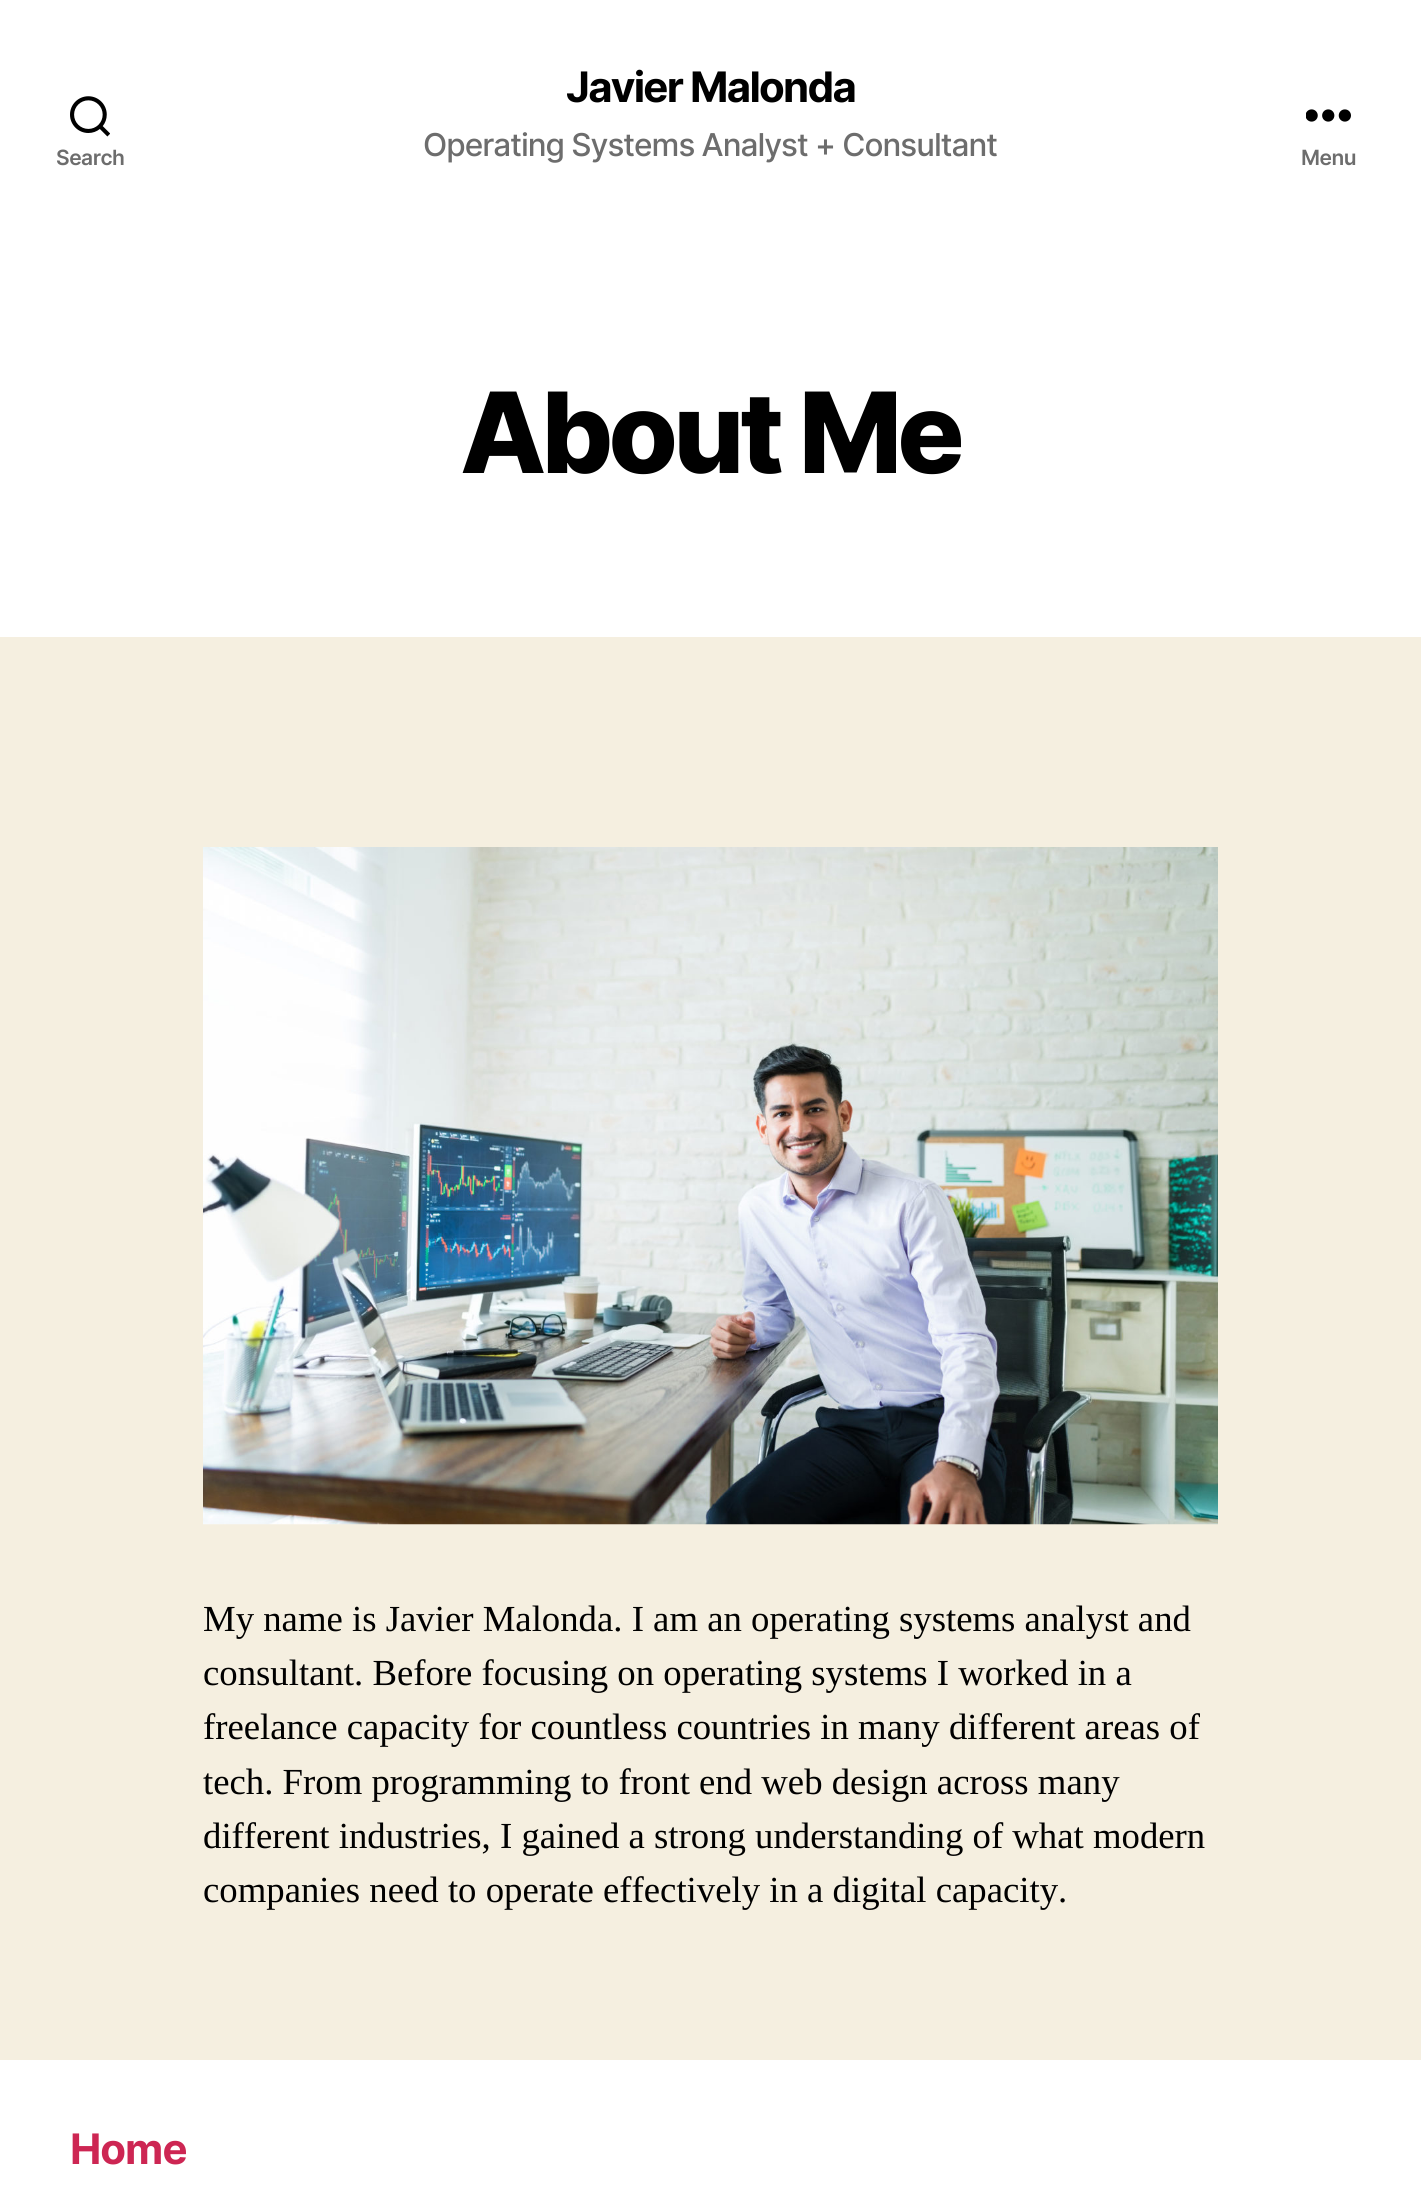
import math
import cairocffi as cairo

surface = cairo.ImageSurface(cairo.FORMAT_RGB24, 1421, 2211)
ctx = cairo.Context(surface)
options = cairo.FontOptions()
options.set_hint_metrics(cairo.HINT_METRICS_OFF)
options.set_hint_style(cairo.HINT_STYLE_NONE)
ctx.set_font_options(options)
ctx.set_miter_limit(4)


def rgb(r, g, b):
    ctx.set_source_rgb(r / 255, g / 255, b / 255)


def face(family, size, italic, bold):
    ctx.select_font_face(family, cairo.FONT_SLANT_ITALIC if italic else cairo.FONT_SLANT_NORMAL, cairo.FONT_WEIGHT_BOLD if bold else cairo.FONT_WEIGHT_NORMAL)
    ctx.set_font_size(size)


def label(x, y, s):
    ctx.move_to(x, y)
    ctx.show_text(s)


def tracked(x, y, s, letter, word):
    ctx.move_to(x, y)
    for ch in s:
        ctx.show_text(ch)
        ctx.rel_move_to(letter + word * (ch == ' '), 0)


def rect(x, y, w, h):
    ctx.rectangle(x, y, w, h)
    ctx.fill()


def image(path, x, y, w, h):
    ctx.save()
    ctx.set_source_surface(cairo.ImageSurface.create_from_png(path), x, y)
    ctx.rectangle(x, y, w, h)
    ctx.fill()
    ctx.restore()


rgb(245, 239, 224)
ctx.paint()
rgb(255, 255, 255)
rect(0, 0, 1421, 637)
image('image0.png', 70, 96, 40, 41)
face('Inter SemiBold', 21, 0, 0)
rgb(109, 109, 109)
tracked(56, 165, 'Search', -0.5, 0)
face('Inter', 42, 0, 1)
rgb(0, 0, 0)
tracked(566, 102, 'Javier Malonda', -1.75, 0)
face('Inter Medium', 31.5, 0, 0)
rgb(109, 109, 109)
tracked(423, 156, 'Operating Systems Analyst + Consultant', -1, 0)
image('image1.png', 1306, 109, 45, 13)
face('Inter SemiBold', 21, 0, 0)
tracked(1301, 165, 'Menu', -0.5, 0)
face('Inter ExtraBold', 112, 0, 0)
rgb(0, 0, 0)
tracked(460, 473, 'About Me', -4.75, 0)
image('image2.png', 203, 847, 1015, 678)
face('Liberation Serif', 36.75, 0, 0)
label(203, 1631, 'My name is Javier Malonda. I am an operating systems analyst and')
label(203, 1685, 'consultant. Before focusing on operating systems I worked in a')
label(203, 1739, 'freelance capacity for countless countries in many different areas of')
label(203, 1794, 'tech. From programming to front end web design across many')
label(203, 1848, 'different industries, I gained a strong understanding of what modern')
label(203, 1902, 'companies need to operate effectively in a digital capacity.')
rgb(255, 255, 255)
rect(0, 2060, 1421, 151)
face('Inter', 42, 0, 1)
rgb(205, 38, 83)
tracked(70, 2164, 'Home', -1, 0)
surface.write_to_png('render.png')
